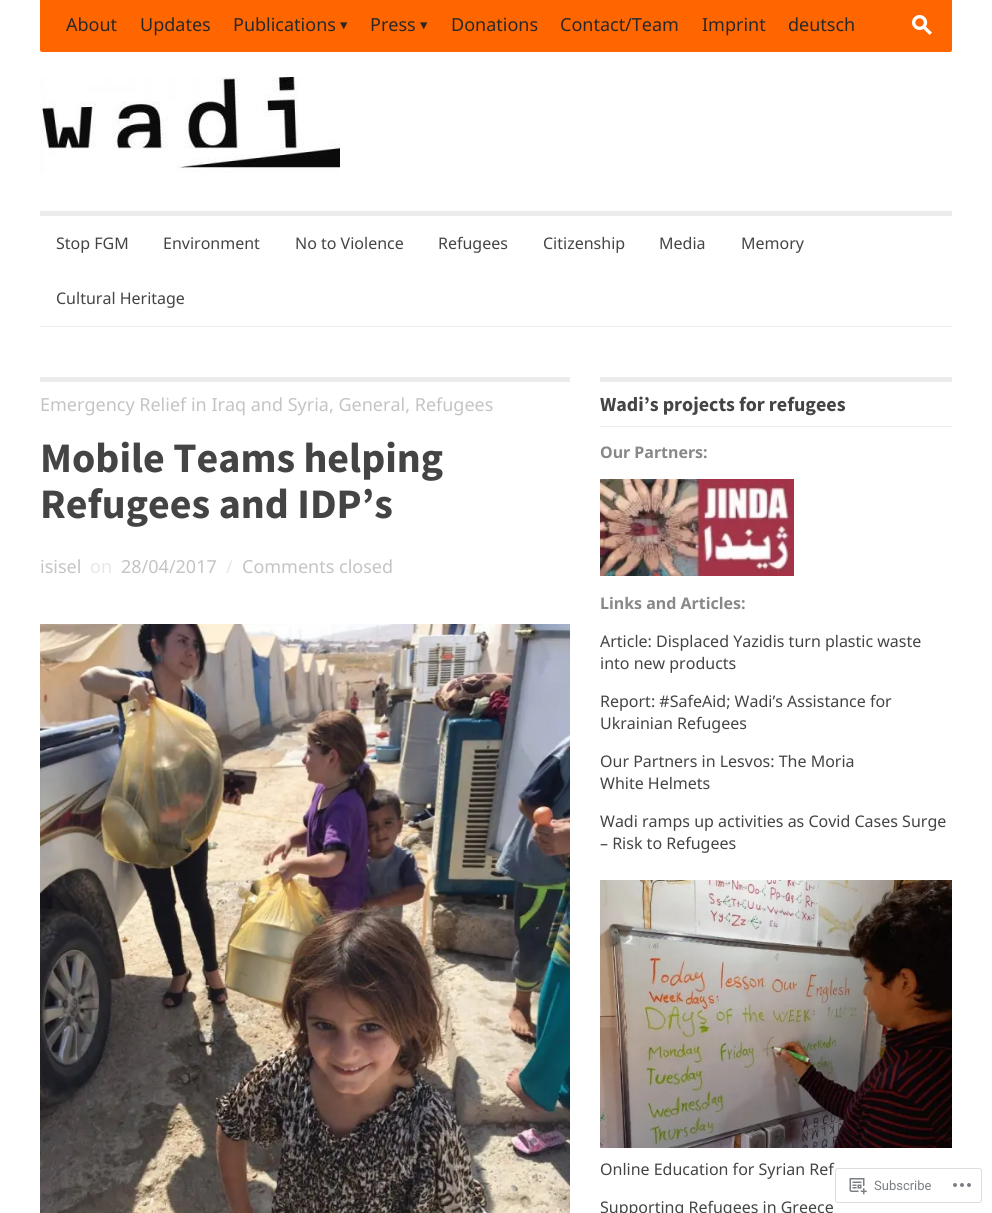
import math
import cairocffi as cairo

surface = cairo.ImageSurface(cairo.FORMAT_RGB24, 992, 1213)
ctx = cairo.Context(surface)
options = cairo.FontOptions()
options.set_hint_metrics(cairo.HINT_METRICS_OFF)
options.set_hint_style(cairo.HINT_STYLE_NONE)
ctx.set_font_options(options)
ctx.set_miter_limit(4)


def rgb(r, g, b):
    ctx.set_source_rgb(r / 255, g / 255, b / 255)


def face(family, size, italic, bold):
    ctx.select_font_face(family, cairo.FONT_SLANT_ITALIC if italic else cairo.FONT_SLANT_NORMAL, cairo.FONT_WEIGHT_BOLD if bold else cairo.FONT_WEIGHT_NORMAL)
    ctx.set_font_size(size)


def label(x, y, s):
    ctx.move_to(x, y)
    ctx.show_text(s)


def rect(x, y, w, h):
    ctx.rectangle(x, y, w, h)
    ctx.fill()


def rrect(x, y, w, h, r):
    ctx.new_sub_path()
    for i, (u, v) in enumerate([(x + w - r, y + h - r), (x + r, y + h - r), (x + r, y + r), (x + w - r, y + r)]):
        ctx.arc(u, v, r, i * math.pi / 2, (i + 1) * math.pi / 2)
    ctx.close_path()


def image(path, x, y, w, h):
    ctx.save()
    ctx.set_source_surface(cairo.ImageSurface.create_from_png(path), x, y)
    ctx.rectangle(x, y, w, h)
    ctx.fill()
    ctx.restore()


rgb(255, 255, 255)
ctx.paint()
rgb(255, 102, 0)
ctx.new_path()
ctx.move_to(40, 0)
ctx.line_to(952, 0)
ctx.line_to(952, 50)
ctx.curve_to(952, 51, 951, 52, 950, 52)
ctx.line_to(42, 52)
ctx.curve_to(41, 52, 40, 51, 40, 50)
ctx.close_path()
ctx.fill()
face('Noto Sans', 18, 0, 0)
rgb(40, 40, 40)
label(66, 31, 'About')
label(140, 31, 'Updates')
label(233, 31, 'Publications')
face('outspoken', 7, 0, 0)
label(340, 29, '_')
face('Noto Sans', 18, 0, 0)
label(370, 31, 'Press')
face('outspoken', 7, 0, 0)
label(420, 29, '_')
face('Noto Sans', 18, 0, 0)
label(451, 31, 'Donations')
label(560, 31, 'Contact/Team')
label(702, 31, 'Imprint')
label(788, 31, 'deutsch')
face('outspoken', 20, 0, 0)
rgb(255, 255, 255)
label(912, 34, 's')
image('image0.png', 40, 77, 300, 96)
rgb(236, 236, 236)
rect(40, 211, 912, 5)
rect(40, 326, 912, 1)
face('Noto Sans', 16, 0, 0)
rgb(68, 68, 68)
label(56, 249, 'Stop FGM')
label(163, 249, 'Environment')
label(295, 249, 'No to Violence')
label(438, 249, 'Refugees')
label(543, 249, 'Citizenship')
label(659, 249, 'Media')
label(741, 249, 'Memory')
label(56, 304, 'Cultural Heritage')
rgb(236, 236, 236)
rect(40, 377, 530, 5)
face('Noto Sans', 18, 0, 0)
rgb(196, 196, 196)
label(40, 411, 'Emergency Relief in Iraq and Syria, General, Refugees')
face('Source Sans Pro', 42, 0, 1)
rgb(68, 68, 68)
label(40, 472, 'Mobile Teams helping')
label(40, 518, 'Refugees and IDP’s')
face('Noto Sans', 18, 0, 0)
rgb(196, 196, 196)
label(40, 573, 'isisel')
rgb(231, 231, 231)
label(90, 573, 'on')
rgb(196, 196, 196)
label(121, 573, '28/04/2017')
rgb(231, 231, 231)
label(226, 573, '/')
rgb(196, 196, 196)
label(242, 573, 'Comments closed')
image('image1.png', 40, 624, 530, 589)
rgb(236, 236, 236)
rect(600, 377, 352, 5)
rect(600, 426, 352, 1)
face('Source Sans Pro', 20, 0, 1)
rgb(68, 68, 68)
label(600, 411, 'Wadi’s projects for refugees')
face('Noto Sans', 16, 0, 1)
rgb(136, 136, 136)
label(600, 458, 'Our Partners:')
image('image2.png', 600, 479, 194, 97)
label(600, 609, 'Links and Articles:')
face('Noto Sans', 16, 0, 0)
rgb(68, 68, 68)
label(600, 647, 'Article: Displaced Yazidis turn plastic waste')
label(600, 669, 'into new products')
label(600, 707, 'Report: #SafeAid; Wadi’s Assistance for')
label(600, 729, 'Ukrainian Refugees')
label(600, 767, 'Our Partners in Lesvos: The Moria')
label(600, 789, 'White Helmets')
label(600, 827, 'Wadi ramps up activities as Covid Cases Surge')
label(600, 849, '– Risk to Refugees')
image('image3.png', 600, 880, 352, 268)
label(600, 1175, 'Online Education for Syrian Ref')
label(600, 1213, 'Supporting Refugees in Greece')
rrect(835.5, 1168.5, 146, 34, 2.5)
ctx.set_source_rgba(0.863, 0.863, 0.871, 0.98)
ctx.set_line_width(1)
ctx.stroke()
image('image4.png', 849, 1178, 18, 17)
face('Roboto', 13, 0, 0)
rgb(123, 127, 133)
label(874, 1190, 'Subscribe')
image('image5.png', 953, 1183, 18, 4)
surface.write_to_png('render.png')
